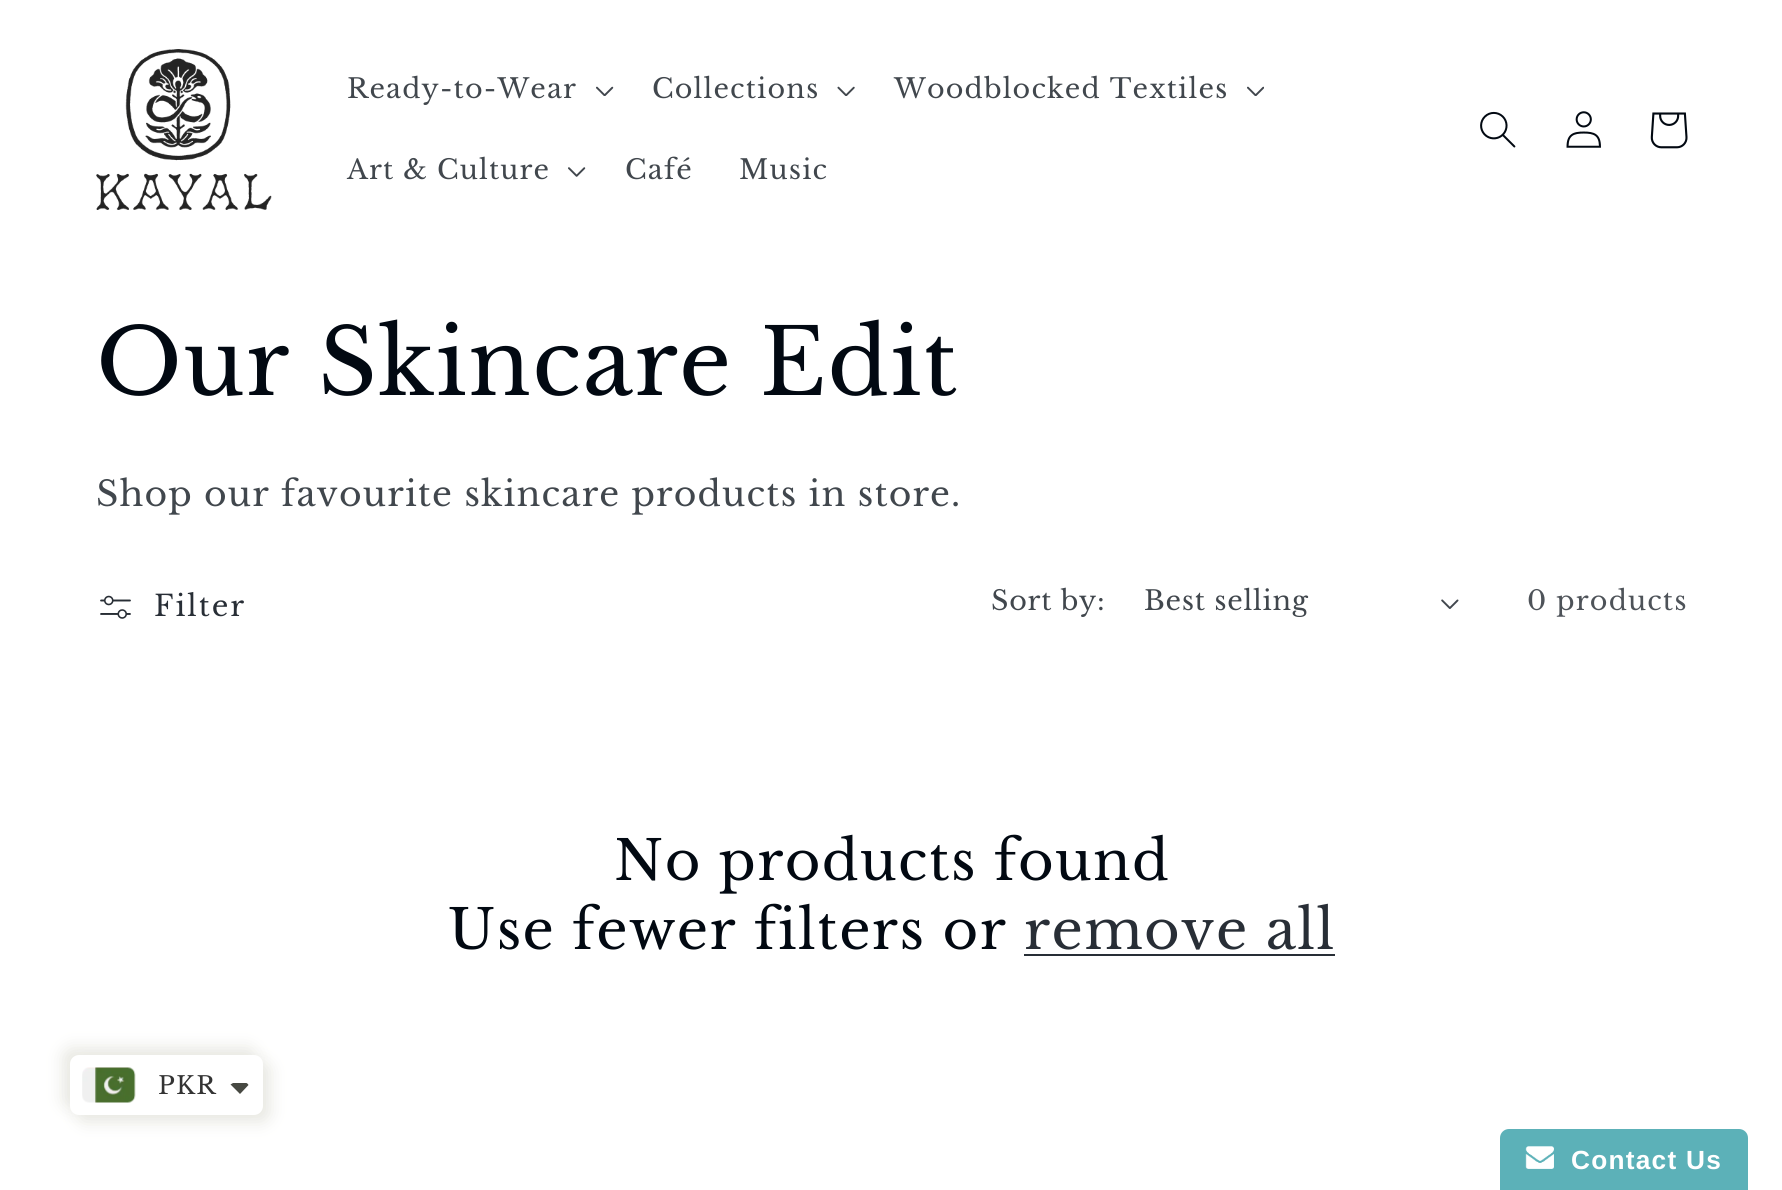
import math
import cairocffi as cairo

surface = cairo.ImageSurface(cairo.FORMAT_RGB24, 1782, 1190)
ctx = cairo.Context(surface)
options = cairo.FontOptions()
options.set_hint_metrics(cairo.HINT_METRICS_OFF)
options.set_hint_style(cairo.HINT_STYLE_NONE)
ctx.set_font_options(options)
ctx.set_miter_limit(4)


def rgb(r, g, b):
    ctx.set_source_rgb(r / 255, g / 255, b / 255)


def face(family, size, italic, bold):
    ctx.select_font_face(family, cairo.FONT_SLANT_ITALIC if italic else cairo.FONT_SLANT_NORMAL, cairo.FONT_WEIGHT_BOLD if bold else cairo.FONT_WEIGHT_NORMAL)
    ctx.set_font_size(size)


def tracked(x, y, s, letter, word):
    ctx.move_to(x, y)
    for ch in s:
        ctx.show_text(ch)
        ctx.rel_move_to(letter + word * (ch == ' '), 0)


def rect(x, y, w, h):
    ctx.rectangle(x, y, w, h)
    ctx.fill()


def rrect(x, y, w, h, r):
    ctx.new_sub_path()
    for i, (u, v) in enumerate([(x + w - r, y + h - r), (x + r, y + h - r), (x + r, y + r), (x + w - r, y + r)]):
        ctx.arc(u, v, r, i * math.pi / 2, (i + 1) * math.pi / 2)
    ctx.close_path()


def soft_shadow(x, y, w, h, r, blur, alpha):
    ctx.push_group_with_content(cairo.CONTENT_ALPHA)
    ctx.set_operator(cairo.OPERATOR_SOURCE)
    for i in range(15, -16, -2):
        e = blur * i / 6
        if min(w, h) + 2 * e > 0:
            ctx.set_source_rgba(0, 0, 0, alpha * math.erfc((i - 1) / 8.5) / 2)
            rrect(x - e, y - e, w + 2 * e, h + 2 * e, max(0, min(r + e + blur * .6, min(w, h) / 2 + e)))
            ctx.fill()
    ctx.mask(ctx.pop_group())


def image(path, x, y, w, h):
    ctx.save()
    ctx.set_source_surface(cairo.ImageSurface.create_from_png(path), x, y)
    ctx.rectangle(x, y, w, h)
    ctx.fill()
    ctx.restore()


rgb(255, 255, 255)
ctx.paint()
image('image0.png', 96, 49, 176, 161)
face('Libre Baskerville', 27, 0, 0)
rgb(65, 71, 77)
tracked(347, 98, 'Ready-to-Wear', 1.15, 0)
image('image1.png', 596, 86, 18, 10)
tracked(652, 98, 'Collections', 1.15, 0)
image('image2.png', 837, 86, 18, 10)
tracked(894, 98, 'Woodblocked Textiles', 1.15, 0)
image('image3.png', 1247, 86, 17, 10)
tracked(347, 179, 'Art & Culture', 1.15, 0)
image('image4.png', 568, 167, 18, 10)
tracked(625, 179, 'Café', 1.15, 0)
tracked(739, 179, 'Music', 1.15, 0)
image('image5.png', 1480, 111, 36, 37)
image('image6.png', 1566, 111, 35, 37)
image('image7.png', 1650, 112, 38, 37)
face('Libre Baskerville', 91, 0, 0)
rgb(2, 9, 18)
tracked(96, 395, 'Our Skincare Edit', 1.4, 0)
face('Libre Baskerville', 34.65, 0, 0)
rgb(65, 71, 77)
tracked(96, 506, 'Shop our favourite skincare products in store.', 1.15, 0)
image('image8.png', 100, 595, 31, 24)
face('Libre Baskerville', 29, 0, 0)
rgb(40, 46, 54)
tracked(154, 616, 'Filter', 2, 0)
face('Libre Baskerville', 27, 0, 0)
rgb(65, 71, 77)
tracked(991, 610, 'Sort by:', 0.75, 0)
tracked(1144, 610, 'Best selling', 0.75, 0)
image('image9.png', 1441, 599, 18, 10)
rgb(78, 83, 89)
tracked(1527, 610, '0 products', 1.15, 0)
face('Libre Baskerville', 54.6, 0, 0)
rgb(2, 9, 18)
tracked(614, 880, 'No products found', 1.4, 0)
tracked(448, 949, 'Use fewer filters or', 1.4, 0)
rgb(40, 46, 54)
tracked(1024, 949, 'remove all', 1.4, 0)
rect(1024, 954, 311, 2)
rgb(232, 232, 226)
soft_shadow(63, 1048, 193, 60, 9, 8, 1)
soft_shadow(77, 1062, 193, 60, 9, 8, 1)
rgb(255, 255, 255)
rrect(70, 1055, 193, 60, 9)
ctx.fill()
image('image10.png', 82, 1067, 54, 36)
face('Libre Baskerville', 24.5, 0, 0)
rgb(51, 51, 51)
tracked(158, 1094, 'PKR', 1.15, 0)
rgb(71, 73, 66)
ctx.new_path()
ctx.move_to(230.5, 1084.5)
ctx.curve_to(231.5, 1084, 232, 1083.5, 233, 1083)
ctx.line_to(246.5, 1083)
ctx.curve_to(247.5, 1083.5, 248, 1084, 248.5, 1085)
ctx.line_to(240, 1094)
ctx.close_path()
ctx.fill()
rgb(92, 177, 184)
ctx.new_path()
ctx.move_to(1509, 1129)
ctx.line_to(1739, 1129)
ctx.curve_to(1744, 1129, 1748, 1133, 1748, 1138)
ctx.line_to(1748, 1190)
ctx.line_to(1500, 1190)
ctx.line_to(1500, 1138)
ctx.curve_to(1500, 1133, 1504, 1129, 1509, 1129)
ctx.close_path()
ctx.fill()
image('image11.png', 1525, 1146, 29, 23)
face('Liberation Sans', 26.25, 0, 1)
rgb(255, 255, 255)
tracked(1571, 1169, 'Contact Us', 1.25, 0)
surface.write_to_png('render.png')
